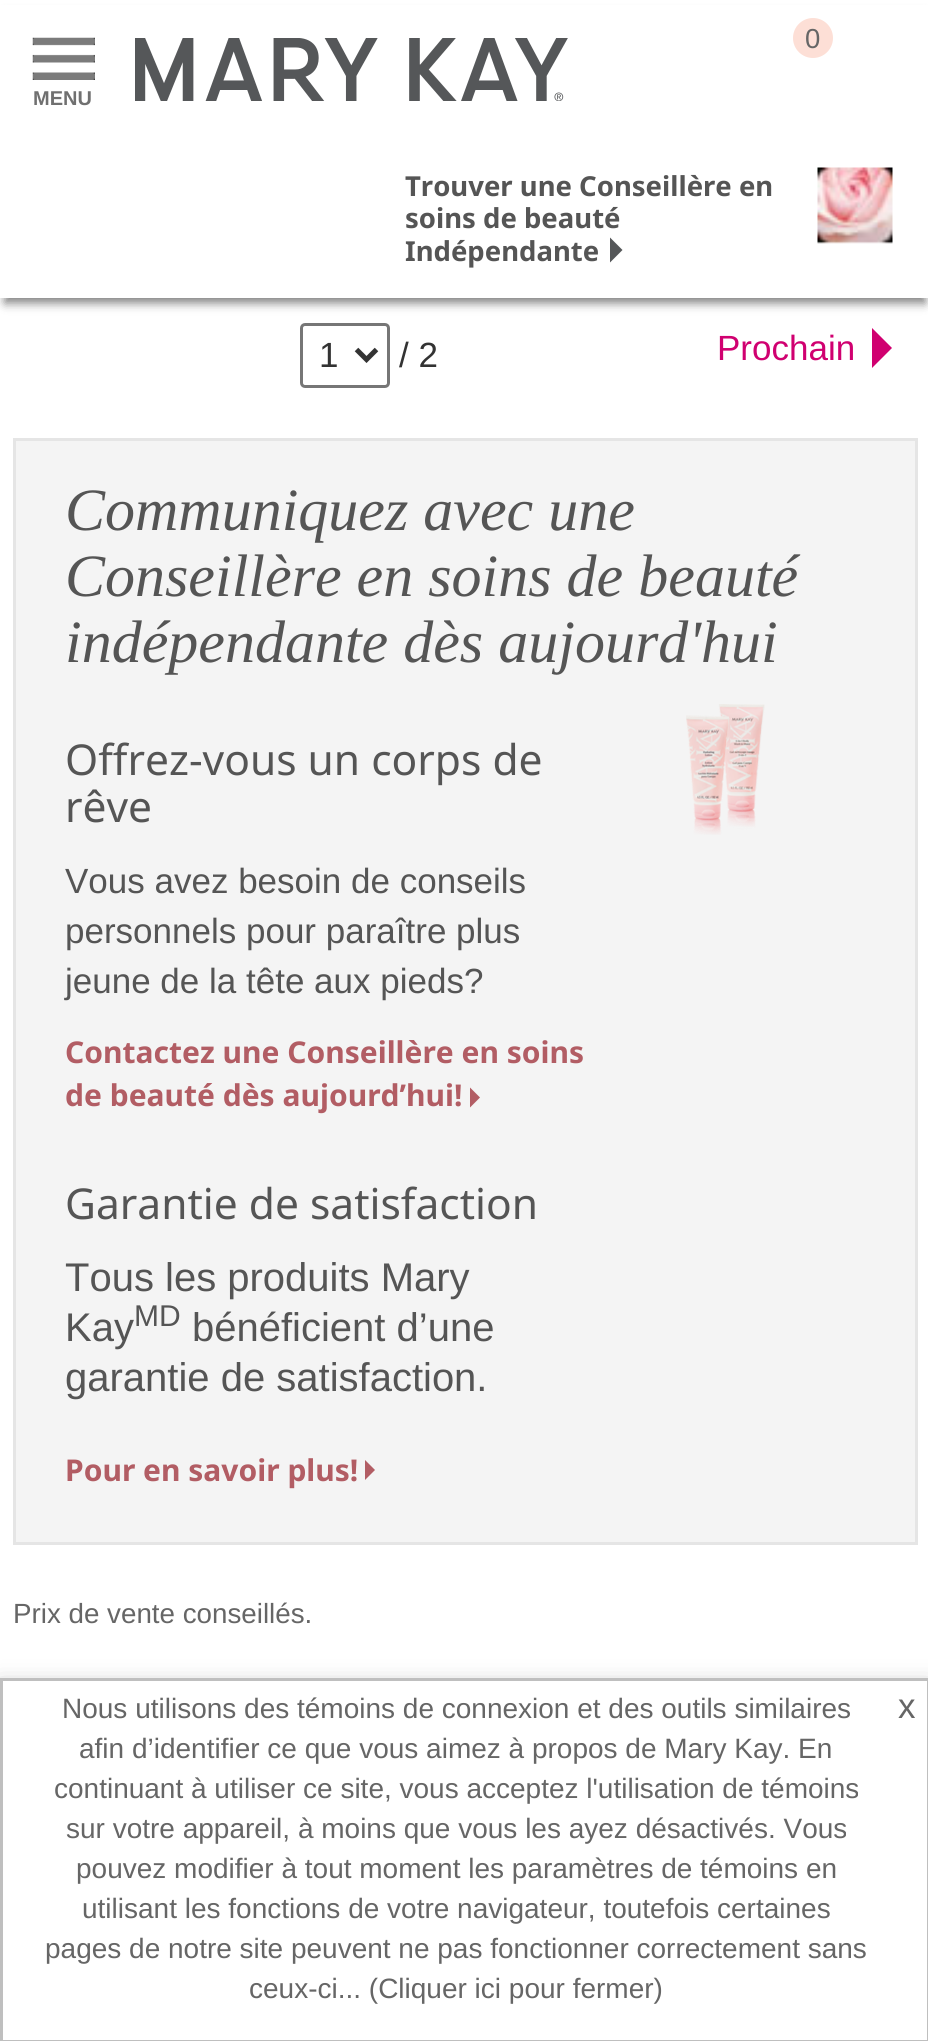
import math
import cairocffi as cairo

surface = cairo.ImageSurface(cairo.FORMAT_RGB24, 928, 2041)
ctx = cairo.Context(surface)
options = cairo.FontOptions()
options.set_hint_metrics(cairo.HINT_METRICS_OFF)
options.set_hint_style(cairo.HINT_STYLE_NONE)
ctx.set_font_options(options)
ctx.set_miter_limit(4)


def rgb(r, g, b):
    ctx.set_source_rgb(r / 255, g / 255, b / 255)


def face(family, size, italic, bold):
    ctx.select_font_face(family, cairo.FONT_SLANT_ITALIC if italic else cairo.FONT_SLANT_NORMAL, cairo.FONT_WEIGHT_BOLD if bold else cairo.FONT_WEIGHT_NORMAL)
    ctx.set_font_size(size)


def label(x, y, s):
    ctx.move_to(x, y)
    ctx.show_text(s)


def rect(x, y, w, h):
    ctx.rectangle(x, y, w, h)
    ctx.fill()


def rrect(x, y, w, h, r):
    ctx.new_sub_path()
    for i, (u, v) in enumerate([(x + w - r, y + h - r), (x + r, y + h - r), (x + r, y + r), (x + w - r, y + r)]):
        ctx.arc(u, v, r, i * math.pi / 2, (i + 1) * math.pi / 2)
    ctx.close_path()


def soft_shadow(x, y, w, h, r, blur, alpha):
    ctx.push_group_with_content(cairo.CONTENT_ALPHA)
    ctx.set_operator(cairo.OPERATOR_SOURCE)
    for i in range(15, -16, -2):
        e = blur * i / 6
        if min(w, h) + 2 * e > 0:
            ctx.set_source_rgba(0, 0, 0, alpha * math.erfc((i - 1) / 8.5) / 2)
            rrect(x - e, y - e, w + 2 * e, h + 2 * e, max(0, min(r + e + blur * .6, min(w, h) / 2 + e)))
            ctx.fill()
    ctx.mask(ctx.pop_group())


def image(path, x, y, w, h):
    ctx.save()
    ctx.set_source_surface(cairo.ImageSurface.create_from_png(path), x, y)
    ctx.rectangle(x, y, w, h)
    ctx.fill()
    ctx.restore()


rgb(255, 255, 255)
ctx.paint()
rgb(0, 0, 0)
soft_shadow(5, 15, 920, 288, 0, 5, 0.5)
rgb(255, 255, 255)
rect(0, 5, 928, 293)
rgb(253, 223, 214)
ctx.arc(813, 38, 22.5, 0, 2 * math.pi)
ctx.fill_preserve()
rgb(255, 255, 255)
ctx.set_line_width(5)
ctx.stroke()
face('Liberation Sans', 27.5, 0, 0)
rgb(102, 102, 102)
label(805, 48, '0')
image('image0.png', 32, 37, 63, 43)
face('Liberation Sans', 20, 0, 1)
rgb(112, 112, 112)
label(33, 105, 'MENU')
image('image1.png', 135, 38, 433, 63)
face('Noto Sans', 27.5, 0, 1)
rgb(85, 85, 85)
label(405, 196, 'Trouver une Conseillère en')
label(405, 228, 'soins de beauté')
label(405, 261, 'Indépendante')
rgb(85, 87, 89)
ctx.new_path()
ctx.move_to(610, 262.5)
ctx.line_to(610, 237.5)
ctx.line_to(622.5, 250)
ctx.close_path()
ctx.fill()
image('image2.png', 817, 167, 76, 77)
rrect(301.5, 324.5, 87, 62, 3.5)
rgb(118, 118, 118)
ctx.set_line_width(3)
ctx.stroke()
ctx.new_path()
ctx.move_to(356.5, 349.5)
ctx.line_to(366.5, 359.5)
ctx.line_to(376.5, 349.5)
rgb(51, 51, 51)
ctx.set_line_width(5)
ctx.stroke()
face('Liberation Sans', 35, 0, 0)
label(319, 367, '1')
label(399, 367, '/ 2')
rgb(208, 0, 112)
label(717, 360, 'Prochain')
ctx.new_path()
ctx.move_to(872, 368)
ctx.line_to(872, 328)
ctx.line_to(892, 348)
ctx.close_path()
ctx.fill()
rgb(244, 244, 244)
ctx.rectangle(14.5, 439.5, 902, 1104)
ctx.fill_preserve()
rgb(229, 229, 229)
ctx.set_line_width(3)
ctx.stroke()
face('Liberation Serif', 60, 1, 0)
rgb(85, 85, 85)
label(65, 530, 'Communiquez avec une')
label(65, 596, 'Conseillère en soins de beauté')
label(65, 662, 'indépendante dès aujourd\'hui')
face('Noto Sans', 42.5, 0, 0)
label(65, 775, 'Offrez-vous un corps de')
label(65, 822, 'rêve')
face('Liberation Sans', 35, 0, 0)
label(65, 893, 'Vous avez besoin de conseils')
label(65, 943, 'personnels pour paraître plus')
label(65, 993, 'jeune de la tête aux pieds?')
face('Noto Sans', 30, 0, 1)
rgb(178, 93, 100)
label(65, 1063, 'Contactez une Conseillère en soins')
label(65, 1106, 'de beauté dès aujourd’hui!')
ctx.new_path()
ctx.move_to(470, 1107.5)
ctx.line_to(470, 1087.5)
ctx.line_to(480, 1097.5)
ctx.close_path()
ctx.fill()
image('image3.png', 686, 704, 79, 131)
face('Noto Sans', 42.5, 0, 0)
rgb(85, 85, 85)
label(65, 1219, 'Garantie de satisfaction')
face('Liberation Sans', 40, 0, 0)
label(65, 1291, 'Tous les produits Mary')
label(65, 1341, 'Kay')
face('Liberation Sans', 30, 0, 0)
label(134, 1326, 'MD')
face('Liberation Sans', 40, 0, 0)
label(192, 1341, 'bénéficient d’une')
label(65, 1391, 'garantie de satisfaction.')
face('Noto Sans', 30, 0, 1)
rgb(178, 93, 100)
label(65, 1481, 'Pour en savoir plus!')
ctx.new_path()
ctx.move_to(365, 1480)
ctx.line_to(365, 1460)
ctx.line_to(375, 1470)
ctx.close_path()
ctx.fill()
face('Liberation Sans', 27.75, 0, 0)
rgb(102, 102, 102)
label(13, 1623, 'Prix de vente conseillés.')
rgb(153, 153, 153)
soft_shadow(0, 1690, 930, 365, 0, 12.5, 1)
rgb(255, 255, 255)
ctx.rectangle(1.5, 1679.5, 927, 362)
ctx.fill_preserve()
rgb(191, 191, 191)
ctx.stroke()
face('Liberation Sans', 28, 0, 0)
rgb(102, 102, 102)
label(62, 1718, 'Nous utilisons des témoins de connexion et des outils similaires')
label(79, 1758, 'afin d’identifier ce que vous aimez à propos de Mary Kay. En')
label(54, 1798, 'continuant à utiliser ce site, vous acceptez l\'utilisation de témoins')
label(66, 1838, 'sur votre appareil, à moins que vous les ayez désactivés. Vous')
label(76, 1878, 'pouvez modifier à tout moment les paramètres de témoins en')
label(82, 1918, 'utilisant les fonctions de votre navigateur, toutefois certaines')
label(45, 1958, 'pages de notre site peuvent ne pas fonctionner correctement sans')
label(249, 1998, 'ceux-ci... (Cliquer ici pour fermer)')
face('Liberation Sans', 35, 0, 0)
label(898, 1718, 'x')
surface.write_to_png('render.png')
